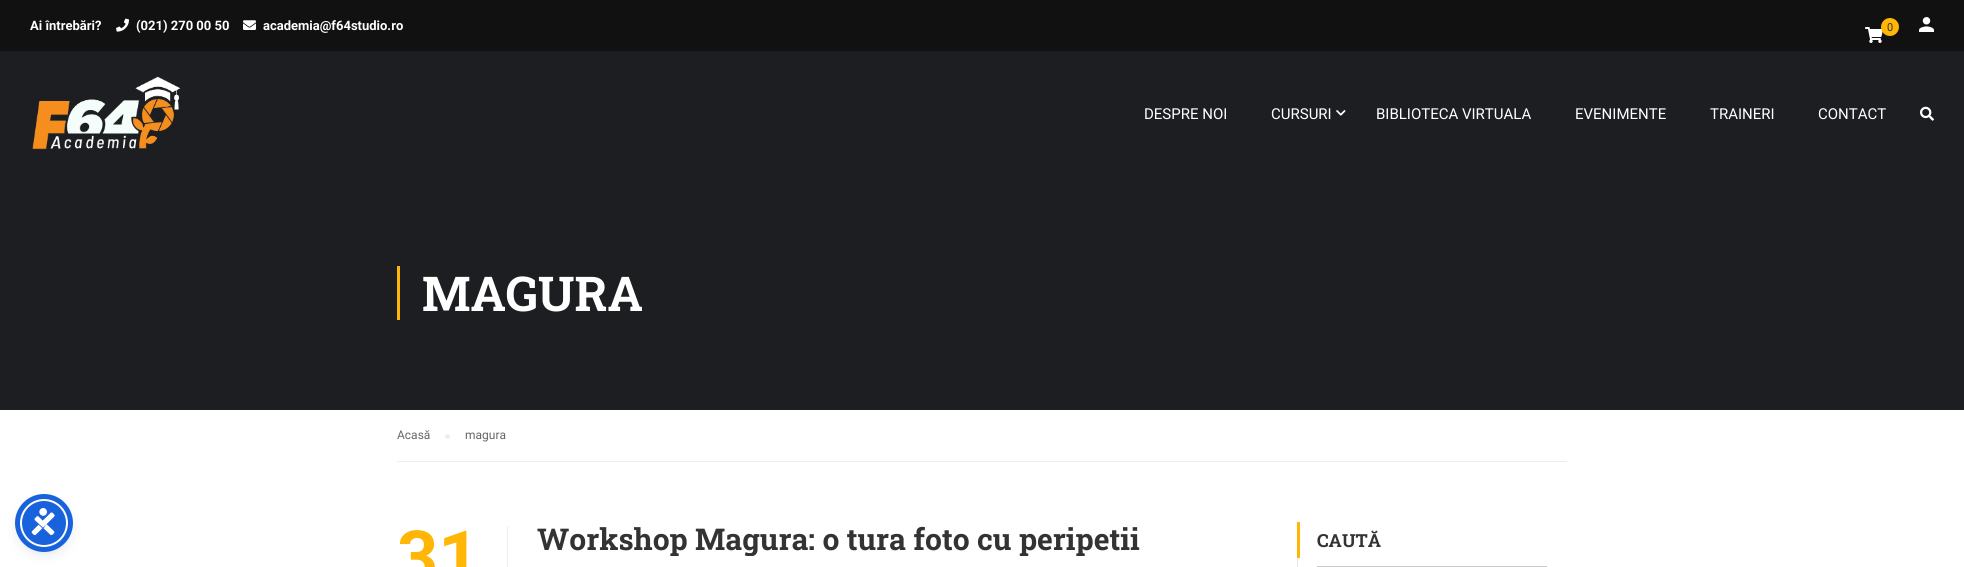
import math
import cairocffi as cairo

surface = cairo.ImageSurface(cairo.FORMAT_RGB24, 1964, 567)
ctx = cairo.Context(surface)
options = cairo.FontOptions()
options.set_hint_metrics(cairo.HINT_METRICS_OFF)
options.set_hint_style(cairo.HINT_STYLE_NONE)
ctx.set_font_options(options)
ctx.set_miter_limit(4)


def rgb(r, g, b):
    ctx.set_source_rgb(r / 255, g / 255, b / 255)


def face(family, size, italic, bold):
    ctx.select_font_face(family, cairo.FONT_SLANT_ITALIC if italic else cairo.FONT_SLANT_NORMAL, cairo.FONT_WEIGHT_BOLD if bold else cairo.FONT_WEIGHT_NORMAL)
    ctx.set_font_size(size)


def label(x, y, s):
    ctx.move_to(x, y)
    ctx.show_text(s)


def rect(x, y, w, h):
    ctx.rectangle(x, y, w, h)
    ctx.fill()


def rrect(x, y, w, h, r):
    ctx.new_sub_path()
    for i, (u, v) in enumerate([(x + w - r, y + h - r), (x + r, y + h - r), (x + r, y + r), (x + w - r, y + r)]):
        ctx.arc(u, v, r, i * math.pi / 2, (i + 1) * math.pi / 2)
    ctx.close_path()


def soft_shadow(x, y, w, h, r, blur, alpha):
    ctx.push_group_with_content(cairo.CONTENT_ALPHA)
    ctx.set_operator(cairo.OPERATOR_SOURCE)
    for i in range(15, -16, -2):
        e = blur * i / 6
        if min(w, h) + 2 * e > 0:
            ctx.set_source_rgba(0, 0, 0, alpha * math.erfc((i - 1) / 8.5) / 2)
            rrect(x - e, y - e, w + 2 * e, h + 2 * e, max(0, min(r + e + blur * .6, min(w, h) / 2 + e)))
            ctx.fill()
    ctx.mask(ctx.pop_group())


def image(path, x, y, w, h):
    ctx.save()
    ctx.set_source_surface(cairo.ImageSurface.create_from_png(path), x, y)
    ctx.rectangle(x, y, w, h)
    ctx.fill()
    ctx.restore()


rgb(255, 255, 255)
ctx.paint()
rgb(17, 17, 17)
rect(0, 0, 1964, 51)
face('Roboto', 13, 0, 1)
rgb(255, 255, 255)
label(30, 30, 'Ai întrebări?')
image('image0.png', 116, 18, 13, 14)
label(136, 30, '(021) 270 00 50')
image('image1.png', 243, 20, 13, 10)
label(263, 30, 'academia@f64studio.ro')
image('image2.png', 1865, 27, 18, 16)
rgb(255, 182, 6)
ctx.arc(1890, 27, 9, 0, 2 * math.pi)
ctx.fill()
face('Roboto', 11, 0, 0)
rgb(51, 51, 51)
label(1887, 31, '0')
image('image3.png', 1919, 17, 15, 15)
rgb(28, 30, 34)
rect(0, 51, 1964, 359)
image('image4.png', 32, 76, 149, 74)
face('Roboto', 15, 0, 0)
rgb(255, 255, 255)
label(1144, 119, 'DESPRE NOI')
label(1271, 119, 'CURSURI')
image('image5.png', 1336, 110, 10, 6)
label(1376, 119, 'BIBLIOTECA VIRTUALA')
label(1575, 119, 'EVENIMENTE')
label(1710, 119, 'TRAINERI')
label(1818, 119, 'CONTACT')
image('image6.png', 1920, 106, 14, 15)
rgb(255, 182, 6)
rect(397, 266, 3, 54)
face('Roboto Slab', 48, 0, 1)
rgb(255, 255, 255)
label(422, 311, 'MAGURA')
rgb(238, 238, 238)
rect(397, 461, 1170, 1)
face('Roboto', 12, 0, 0)
rgb(102, 102, 102)
label(397, 439, 'Acasă')
rgb(238, 238, 238)
ctx.new_path()
ctx.arc(447.5, 436.5, 2.5, 0, 2 * math.pi)
ctx.fill()
rgb(102, 102, 102)
label(465, 439, 'magura')
face('Roboto', 72, 0, 1)
rgb(255, 182, 6)
label(397, 582, '31')
rgb(238, 238, 238)
rect(507, 526, 1, 41)
ctx.save()
ctx.rectangle(537, 522, 730, 34)
ctx.clip()
face('Roboto Slab', 30, 0, 1)
rgb(51, 51, 51)
label(537, 550, 'Workshop Magura: o tura foto cu peripetii')
ctx.restore()
rgb(255, 182, 6)
rect(1297, 522, 3, 36)
face('Roboto Slab', 18, 0, 1)
rgb(51, 51, 51)
label(1317, 547, 'CAUTĂ')
rgb(229, 229, 229)
rect(1297, 558, 1, 9)
rgb(204, 204, 204)
rect(1317, 566, 194, 1)
ctx.rectangle(1511.5, 566.5, 35, 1)
ctx.set_line_width(1)
ctx.stroke()
rgb(93, 100, 148)
soft_shadow(20, 501, 48, 48, 24, 2, 0.2)
rgb(37, 44, 97)
soft_shadow(20, 504, 48, 48, 24, 7.5, 0.15)
rgb(24, 99, 220)
ctx.arc(44, 523, 23, 0, 2 * math.pi)
ctx.fill_preserve()
rgb(255, 255, 255)
ctx.set_line_width(2)
ctx.stroke()
ctx.arc(44, 523, 26.5, 0, 2 * math.pi)
rgb(24, 99, 220)
ctx.set_line_width(5)
ctx.stroke()
image('image7.png', 31, 508, 24, 27)
surface.write_to_png('render.png')
